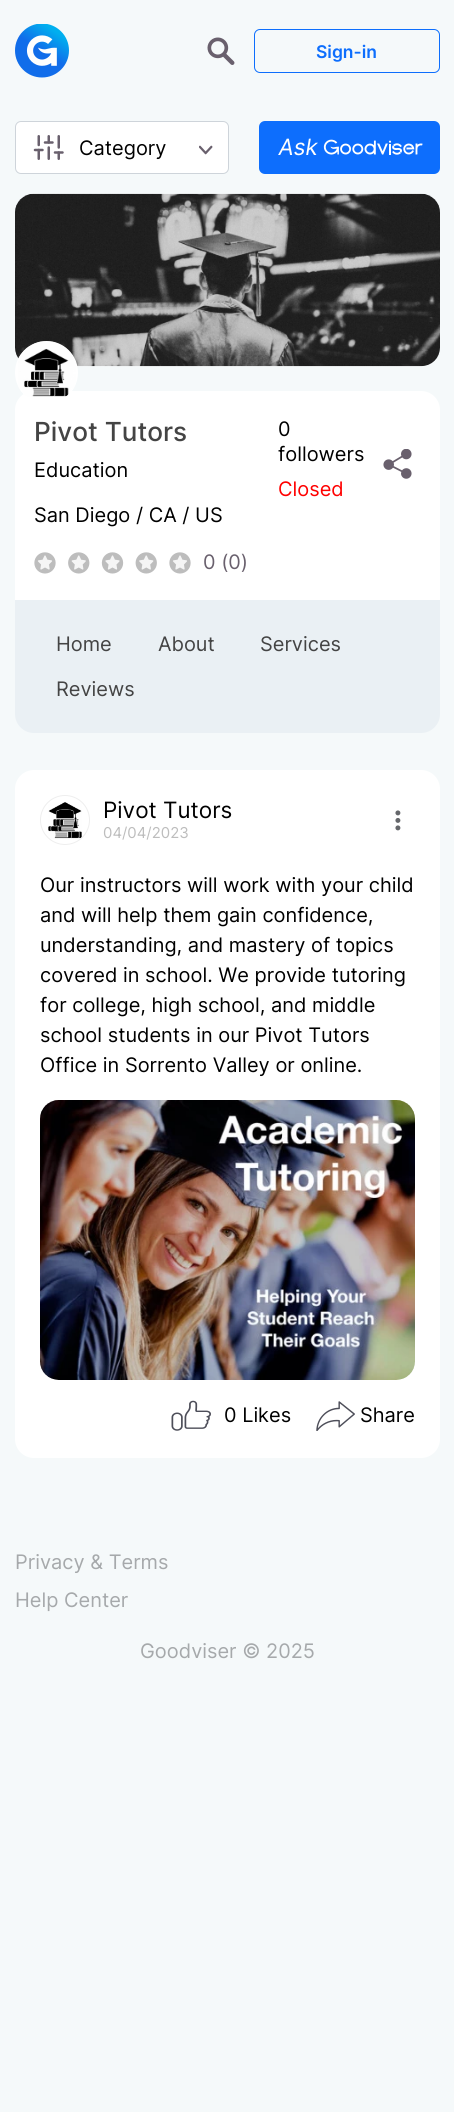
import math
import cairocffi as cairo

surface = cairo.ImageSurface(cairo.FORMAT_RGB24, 454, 2112)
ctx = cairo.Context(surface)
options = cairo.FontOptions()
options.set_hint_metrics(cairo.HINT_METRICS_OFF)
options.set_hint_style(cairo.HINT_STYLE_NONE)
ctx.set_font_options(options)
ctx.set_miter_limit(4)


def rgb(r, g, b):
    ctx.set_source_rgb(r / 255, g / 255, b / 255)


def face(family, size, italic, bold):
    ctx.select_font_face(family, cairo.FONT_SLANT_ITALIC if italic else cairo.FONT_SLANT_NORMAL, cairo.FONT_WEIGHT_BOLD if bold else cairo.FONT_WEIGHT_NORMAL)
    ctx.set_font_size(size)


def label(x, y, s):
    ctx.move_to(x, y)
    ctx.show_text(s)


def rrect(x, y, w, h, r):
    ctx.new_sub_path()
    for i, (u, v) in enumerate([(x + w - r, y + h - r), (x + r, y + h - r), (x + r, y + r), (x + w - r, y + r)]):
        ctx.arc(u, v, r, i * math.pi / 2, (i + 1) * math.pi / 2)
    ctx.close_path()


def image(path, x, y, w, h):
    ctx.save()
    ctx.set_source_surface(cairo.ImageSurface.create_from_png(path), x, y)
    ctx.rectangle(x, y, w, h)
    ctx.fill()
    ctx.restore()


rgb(245, 249, 250)
ctx.paint()
image('image0.png', 15, 24, 54, 54)
image('image1.png', 207, 37, 28, 28)
rrect(254.5, 29.5, 185, 43, 5.5)
rgb(13, 110, 253)
ctx.set_line_width(1)
ctx.stroke()
face('Inter SemiBold', 17.5, 0, 0)
label(316, 58, 'Sign-in')
rgb(255, 255, 255)
rrect(15.5, 121.5, 213, 52, 5.5)
ctx.fill_preserve()
rgb(206, 212, 218)
ctx.stroke()
image('image2.png', 33, 135, 31, 25)
face('Inter', 20, 0, 0)
rgb(0, 0, 0)
label(79, 155, 'Category')
image('image3.png', 199, 145, 14, 10)
rgb(13, 110, 253)
rrect(259, 121, 181, 53, 6)
ctx.fill()
image('image4.png', 278, 138, 145, 18)
image('image5.png', 15, 193, 425, 174)
rgb(255, 255, 255)
ctx.new_path()
ctx.move_to(34, 391)
ctx.line_to(421, 391)
ctx.curve_to(431.5, 391, 440, 399.5, 440, 410)
ctx.line_to(440, 600)
ctx.line_to(15, 600)
ctx.line_to(15, 410)
ctx.curve_to(15, 399.5, 23.5, 391, 34, 391)
ctx.close_path()
ctx.fill()
ctx.arc(46.5, 372.5, 31.5, 0, 2 * math.pi)
ctx.fill()
image('image6.png', 18, 341, 58, 56)
face('Inter Medium', 26.25, 0, 0)
rgb(68, 68, 68)
label(34, 441, 'Pivot Tutors')
face('Inter', 20, 0, 0)
rgb(0, 0, 0)
label(34, 477, 'Education')
label(34, 522, 'San Diego / CA / US')
image('image7.png', 34, 552, 22, 22)
image('image8.png', 68, 552, 22, 22)
image('image9.png', 101, 552, 23, 22)
image('image10.png', 135, 552, 22, 22)
image('image7.png', 169, 552, 22, 22)
rgb(105, 96, 109)
label(203, 569, '0 (0)')
rgb(0, 0, 0)
label(278, 436, '0')
label(278, 461, 'followers')
rgb(255, 0, 0)
label(278, 496, 'Closed')
image('image11.png', 383, 449, 29, 30)
rgb(234, 240, 244)
ctx.new_path()
ctx.move_to(15, 600)
ctx.line_to(440, 600)
ctx.line_to(440, 714)
ctx.curve_to(440, 724.5, 431.5, 733, 421, 733)
ctx.line_to(34, 733)
ctx.curve_to(23.5, 733, 15, 724.5, 15, 714)
ctx.close_path()
ctx.fill()
rgb(68, 68, 68)
label(56, 651, 'Home')
label(158, 651, 'About')
label(260, 651, 'Services')
label(56, 696, 'Reviews')
rgb(255, 255, 255)
rrect(15, 770, 425, 688, 19)
ctx.fill()
image('image12.png', 48, 802, 34, 37)
ctx.arc(65, 820, 24.5, 0, 2 * math.pi)
rgb(238, 238, 238)
ctx.stroke()
face('Inter', 22.5, 0, 0)
rgb(0, 0, 0)
label(103, 818, 'Pivot Tutors')
face('Inter', 15, 0, 0)
rgb(189, 189, 189)
label(103, 838, '04/04/2023')
image('image13.png', 395, 810, 6, 21)
face('Inter', 20, 0, 0)
rgb(0, 0, 0)
label(40, 892, 'Our instructors will work with your child')
label(40, 922, 'and will help them gain confidence,')
label(40, 952, 'understanding, and mastery of topics')
label(40, 982, 'covered in school. We provide tutoring')
label(40, 1012, 'for college, high school, and middle')
label(40, 1042, 'school students in our Pivot Tutors')
label(40, 1072, 'Office in Sorrento Valley or online.')
image('image14.png', 40, 1100, 375, 280)
image('image15.png', 171, 1400, 40, 31)
label(224, 1422, '0 Likes')
image('image16.png', 316, 1401, 39, 30)
label(360, 1422, 'Share')
rgb(166, 169, 171)
label(15, 1569, 'Privacy & Terms')
label(15, 1607, 'Help Center')
label(140, 1658, 'Goodviser © 2025')
surface.write_to_png('render.png')
